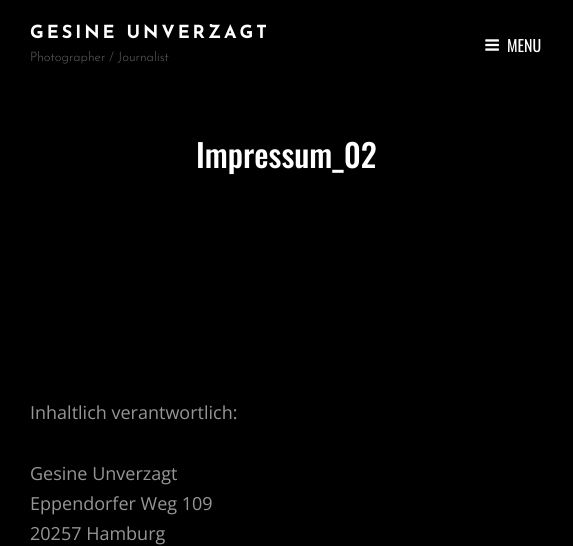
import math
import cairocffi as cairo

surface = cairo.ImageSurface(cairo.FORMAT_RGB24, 573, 546)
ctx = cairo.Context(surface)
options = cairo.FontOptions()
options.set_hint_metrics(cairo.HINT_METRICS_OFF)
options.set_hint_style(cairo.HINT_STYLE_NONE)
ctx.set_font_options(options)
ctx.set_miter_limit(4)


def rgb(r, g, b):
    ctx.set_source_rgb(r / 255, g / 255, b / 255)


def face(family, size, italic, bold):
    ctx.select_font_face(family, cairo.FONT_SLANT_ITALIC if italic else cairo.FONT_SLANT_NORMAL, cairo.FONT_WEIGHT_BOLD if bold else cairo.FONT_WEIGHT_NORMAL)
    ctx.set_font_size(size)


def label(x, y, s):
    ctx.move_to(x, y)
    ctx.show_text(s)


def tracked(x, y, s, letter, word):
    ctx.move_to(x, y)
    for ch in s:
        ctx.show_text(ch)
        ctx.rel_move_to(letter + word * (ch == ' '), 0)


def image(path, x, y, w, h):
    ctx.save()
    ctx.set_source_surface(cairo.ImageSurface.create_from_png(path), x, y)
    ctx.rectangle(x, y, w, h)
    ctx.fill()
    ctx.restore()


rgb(0, 0, 0)
ctx.paint()
face('Josefin Sans', 18, 0, 1)
rgb(255, 255, 255)
tracked(30, 38, 'GESINE UNVERZAGT', 3, 0)
face('Josefin Sans Light', 13, 0, 0)
rgb(102, 102, 102)
label(30, 61, 'Photographer / Journalist')
image('image0.png', 485, 39, 14, 12)
face('Oswald', 16, 0, 0)
rgb(255, 255, 255)
label(507, 52, 'MENU')
face('Oswald Medium', 32, 0, 0)
label(196, 168, 'Impressum_02')
face('Open Sans', 18, 0, 0)
rgb(150, 150, 150)
label(30, 419, 'Inhaltlich verantwortlich:')
label(30, 480, 'Gesine Unverzagt')
label(30, 510, 'Eppendorfer Weg 109')
label(30, 540, '20257 Hamburg')
surface.write_to_png('render.png')
